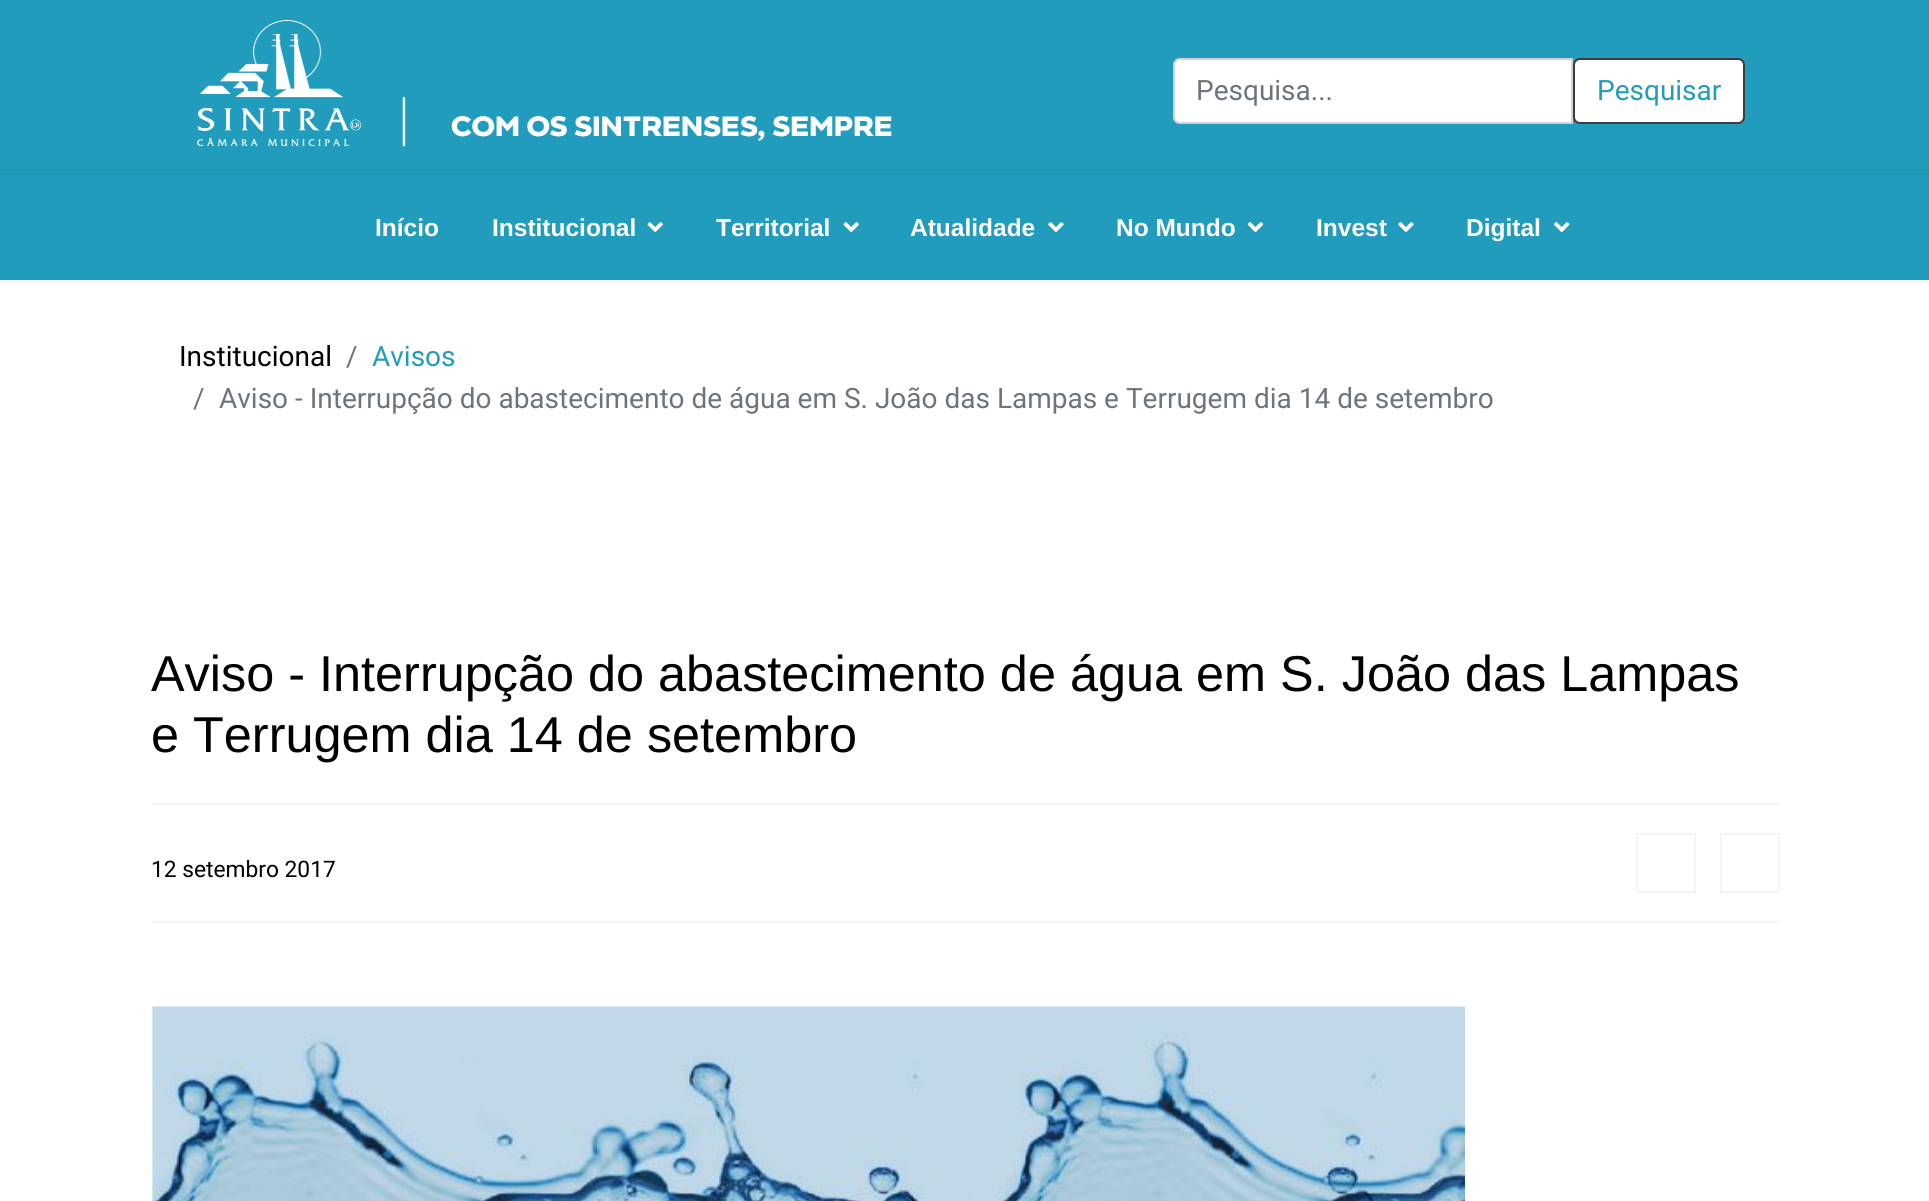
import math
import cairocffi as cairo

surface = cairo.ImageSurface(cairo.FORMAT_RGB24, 1929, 1201)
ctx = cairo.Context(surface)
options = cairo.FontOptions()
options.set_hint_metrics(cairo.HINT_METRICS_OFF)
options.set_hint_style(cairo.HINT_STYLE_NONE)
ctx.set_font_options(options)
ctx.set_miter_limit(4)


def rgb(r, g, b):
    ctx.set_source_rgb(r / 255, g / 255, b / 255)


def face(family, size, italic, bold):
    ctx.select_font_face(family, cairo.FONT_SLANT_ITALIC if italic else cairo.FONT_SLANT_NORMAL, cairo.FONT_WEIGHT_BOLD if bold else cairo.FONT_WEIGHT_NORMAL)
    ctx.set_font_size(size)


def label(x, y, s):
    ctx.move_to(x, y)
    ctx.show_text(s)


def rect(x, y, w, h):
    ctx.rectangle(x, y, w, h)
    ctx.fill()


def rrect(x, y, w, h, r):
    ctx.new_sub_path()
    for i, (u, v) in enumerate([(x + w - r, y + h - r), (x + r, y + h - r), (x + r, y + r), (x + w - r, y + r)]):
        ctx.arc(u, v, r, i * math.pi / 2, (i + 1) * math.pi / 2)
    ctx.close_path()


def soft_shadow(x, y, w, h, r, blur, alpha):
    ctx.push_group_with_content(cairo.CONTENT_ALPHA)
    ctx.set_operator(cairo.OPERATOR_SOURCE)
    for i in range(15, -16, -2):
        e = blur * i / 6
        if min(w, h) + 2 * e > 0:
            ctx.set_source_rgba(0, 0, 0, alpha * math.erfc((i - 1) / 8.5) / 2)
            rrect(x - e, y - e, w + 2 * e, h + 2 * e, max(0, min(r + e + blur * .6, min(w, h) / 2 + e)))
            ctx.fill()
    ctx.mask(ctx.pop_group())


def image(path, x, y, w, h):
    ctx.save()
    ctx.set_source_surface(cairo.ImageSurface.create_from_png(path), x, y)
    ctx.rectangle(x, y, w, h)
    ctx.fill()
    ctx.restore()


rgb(255, 255, 255)
ctx.paint()
rgb(33, 156, 188)
rect(0, 0, 1929, 175)
image('image0.png', 197, 20, 695, 127)
rgb(255, 255, 255)
ctx.new_path()
ctx.move_to(1180, 59)
ctx.line_to(1572, 59)
ctx.line_to(1572, 123)
ctx.line_to(1180, 123)
ctx.curve_to(1176.5, 123, 1174, 120.5, 1174, 117)
ctx.line_to(1174, 65)
ctx.curve_to(1174, 61.5, 1176.5, 59, 1180, 59)
ctx.close_path()
ctx.fill_preserve()
rgb(206, 212, 218)
ctx.stroke()
face('Roboto', 28, 0, 0)
rgb(108, 117, 125)
label(1196, 100, 'Pesquisa...')
rgb(255, 255, 255)
rrect(1574, 59, 170, 64, 6)
ctx.fill_preserve()
rgb(60, 60, 60)
ctx.stroke()
rgb(33, 156, 188)
label(1597, 100, 'Pesquisar')
rgb(0, 0, 0)
soft_shadow(0, 175, 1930, 105, 0, 3.5, 0.1)
rgb(33, 156, 188)
rect(0, 175, 1929, 105)
face('Liberation Sans', 24.5, 0, 1)
rgb(255, 255, 255)
label(375, 236, 'Início')
label(492, 236, 'Institucional')
image('image1.png', 647, 222, 16, 10)
label(716, 236, 'Territorial')
image('image1.png', 843, 222, 16, 10)
label(910, 236, 'Atualidade')
image('image2.png', 1048, 222, 16, 10)
label(1116, 236, 'No Mundo')
image('image3.png', 1247, 222, 17, 10)
label(1316, 236, 'Invest')
image('image2.png', 1398, 222, 16, 10)
label(1466, 236, 'Digital')
image('image4.png', 1554, 222, 16, 10)
face('Roboto', 28, 0, 0)
rgb(0, 0, 0)
label(179, 366, 'Institucional')
rgb(108, 117, 125)
label(346, 366, '/')
rgb(33, 156, 188)
label(372, 366, 'Avisos')
rgb(108, 117, 125)
label(193, 408, '/')
label(219, 408, 'Aviso - Interrupção do abastecimento de água em S. João das Lampas e Terrugem dia 14 de setembro')
face('Liberation Sans', 50.4, 0, 0)
rgb(0, 0, 0)
label(151, 691, 'Aviso - Interrupção do abastecimento de água em S. João das Lampas')
label(151, 752, 'e Terrugem dia 14 de setembro')
rgb(245, 245, 245)
rect(152, 803, 1628, 2)
rect(152, 921, 1628, 2)
ctx.rectangle(1637, 834, 58, 58)
ctx.stroke()
ctx.rectangle(1721, 834, 58, 58)
ctx.stroke()
face('Roboto', 22.75, 0, 0)
rgb(0, 0, 0)
label(151, 877, '12 setembro 2017')
image('image5.png', 151, 1006, 1314, 195)
surface.write_to_png('render.png')
